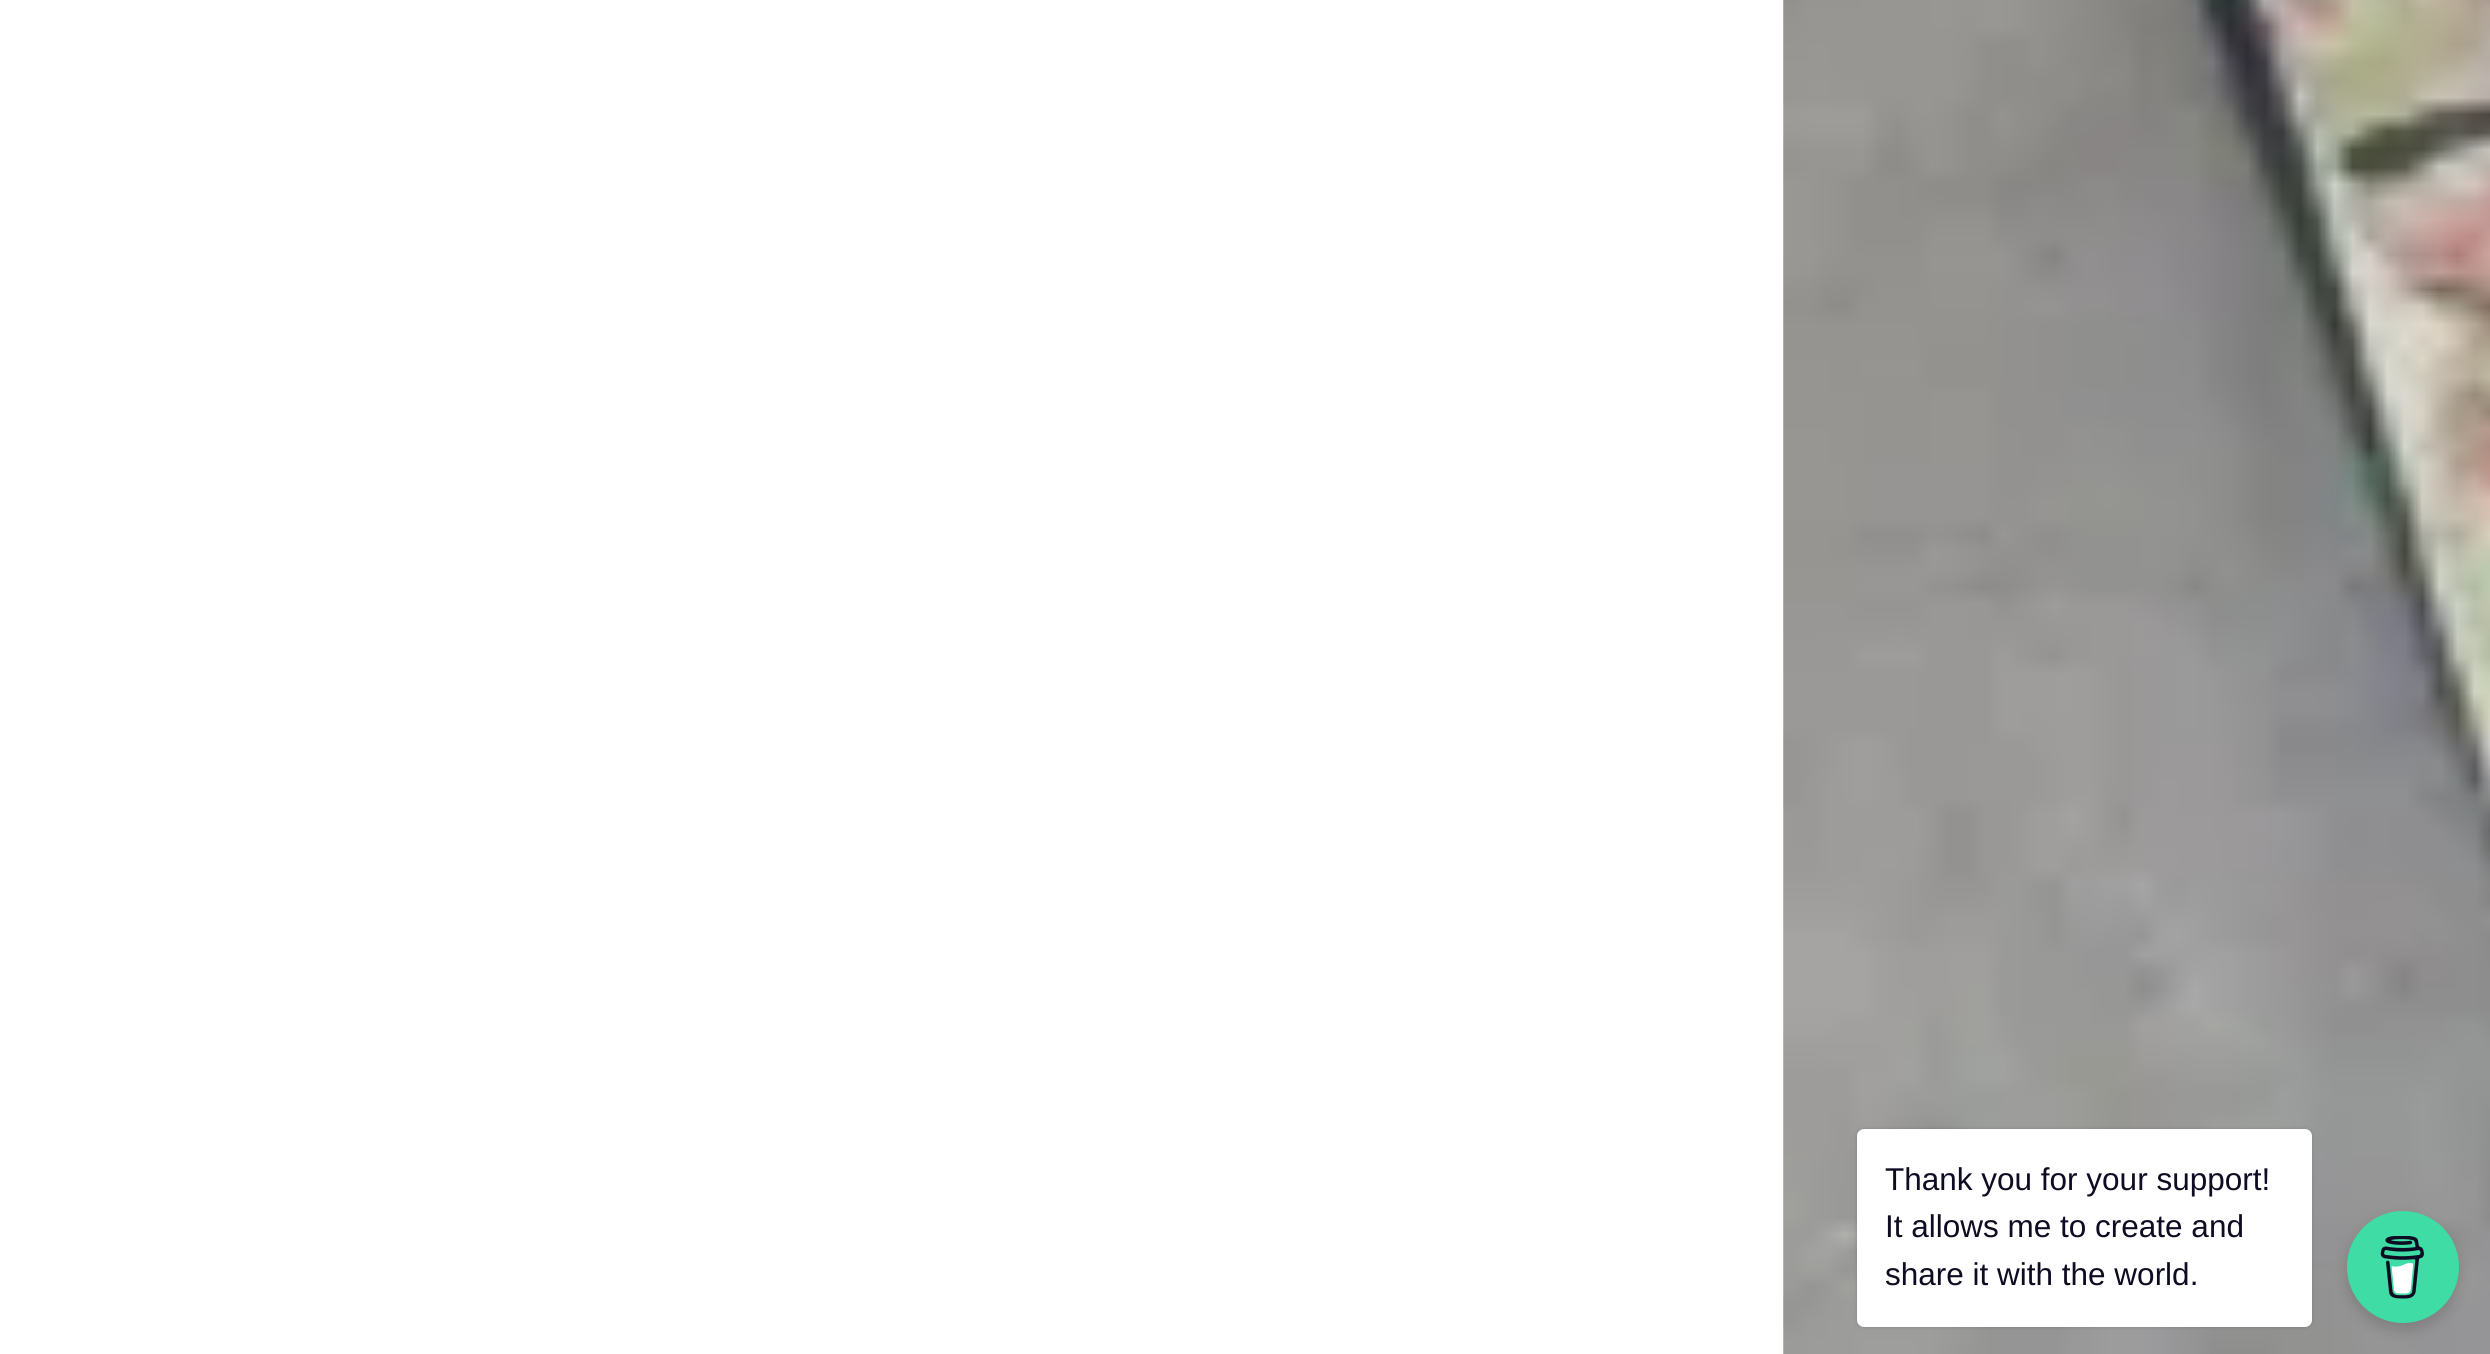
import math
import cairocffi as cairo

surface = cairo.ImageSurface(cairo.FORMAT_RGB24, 2490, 1354)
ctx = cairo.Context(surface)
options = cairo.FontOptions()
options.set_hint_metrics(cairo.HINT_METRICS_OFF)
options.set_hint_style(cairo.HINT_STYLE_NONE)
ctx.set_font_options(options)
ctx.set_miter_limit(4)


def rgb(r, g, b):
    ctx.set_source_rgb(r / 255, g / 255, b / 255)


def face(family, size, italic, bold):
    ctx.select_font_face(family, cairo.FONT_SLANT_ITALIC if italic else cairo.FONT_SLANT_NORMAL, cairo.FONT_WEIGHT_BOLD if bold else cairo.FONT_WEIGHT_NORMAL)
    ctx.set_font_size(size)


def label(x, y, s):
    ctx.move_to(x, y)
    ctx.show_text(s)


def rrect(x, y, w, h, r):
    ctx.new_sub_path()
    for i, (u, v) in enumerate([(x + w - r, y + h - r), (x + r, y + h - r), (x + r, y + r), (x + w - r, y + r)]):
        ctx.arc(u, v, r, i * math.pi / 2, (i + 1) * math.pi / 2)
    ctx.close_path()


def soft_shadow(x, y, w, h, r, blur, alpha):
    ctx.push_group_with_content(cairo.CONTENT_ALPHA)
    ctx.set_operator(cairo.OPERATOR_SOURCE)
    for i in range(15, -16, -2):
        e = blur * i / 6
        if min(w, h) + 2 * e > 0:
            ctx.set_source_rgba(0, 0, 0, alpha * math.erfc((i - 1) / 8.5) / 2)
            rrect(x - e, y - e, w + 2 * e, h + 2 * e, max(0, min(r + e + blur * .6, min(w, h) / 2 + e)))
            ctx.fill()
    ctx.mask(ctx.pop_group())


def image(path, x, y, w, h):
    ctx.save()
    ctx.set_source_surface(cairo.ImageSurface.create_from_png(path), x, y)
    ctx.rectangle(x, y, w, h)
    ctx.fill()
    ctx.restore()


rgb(255, 255, 255)
ctx.paint()
image('image0.png', 1783, 0, 707, 1354)
rgb(0, 0, 0)
soft_shadow(1857, 1129, 455, 198, 7, 2, 0.15)
rgb(255, 255, 255)
rrect(1857, 1129, 455, 198, 7)
ctx.fill()
face('Liberation Sans', 31.5, 0, 0)
rgb(13, 12, 34)
label(1885, 1190, 'Thank you for your support!')
label(1885, 1237, 'It allows me to create and')
label(1885, 1285, 'share it with the world.')
rgb(0, 0, 0)
soft_shadow(2347, 1218, 112, 112, 56, 7, 0.15)
rgb(64, 220, 165)
ctx.arc(2403, 1267, 56, 0, 2 * math.pi)
ctx.fill()
image('image1.png', 2380, 1236, 44, 63)
surface.write_to_png('render.png')
